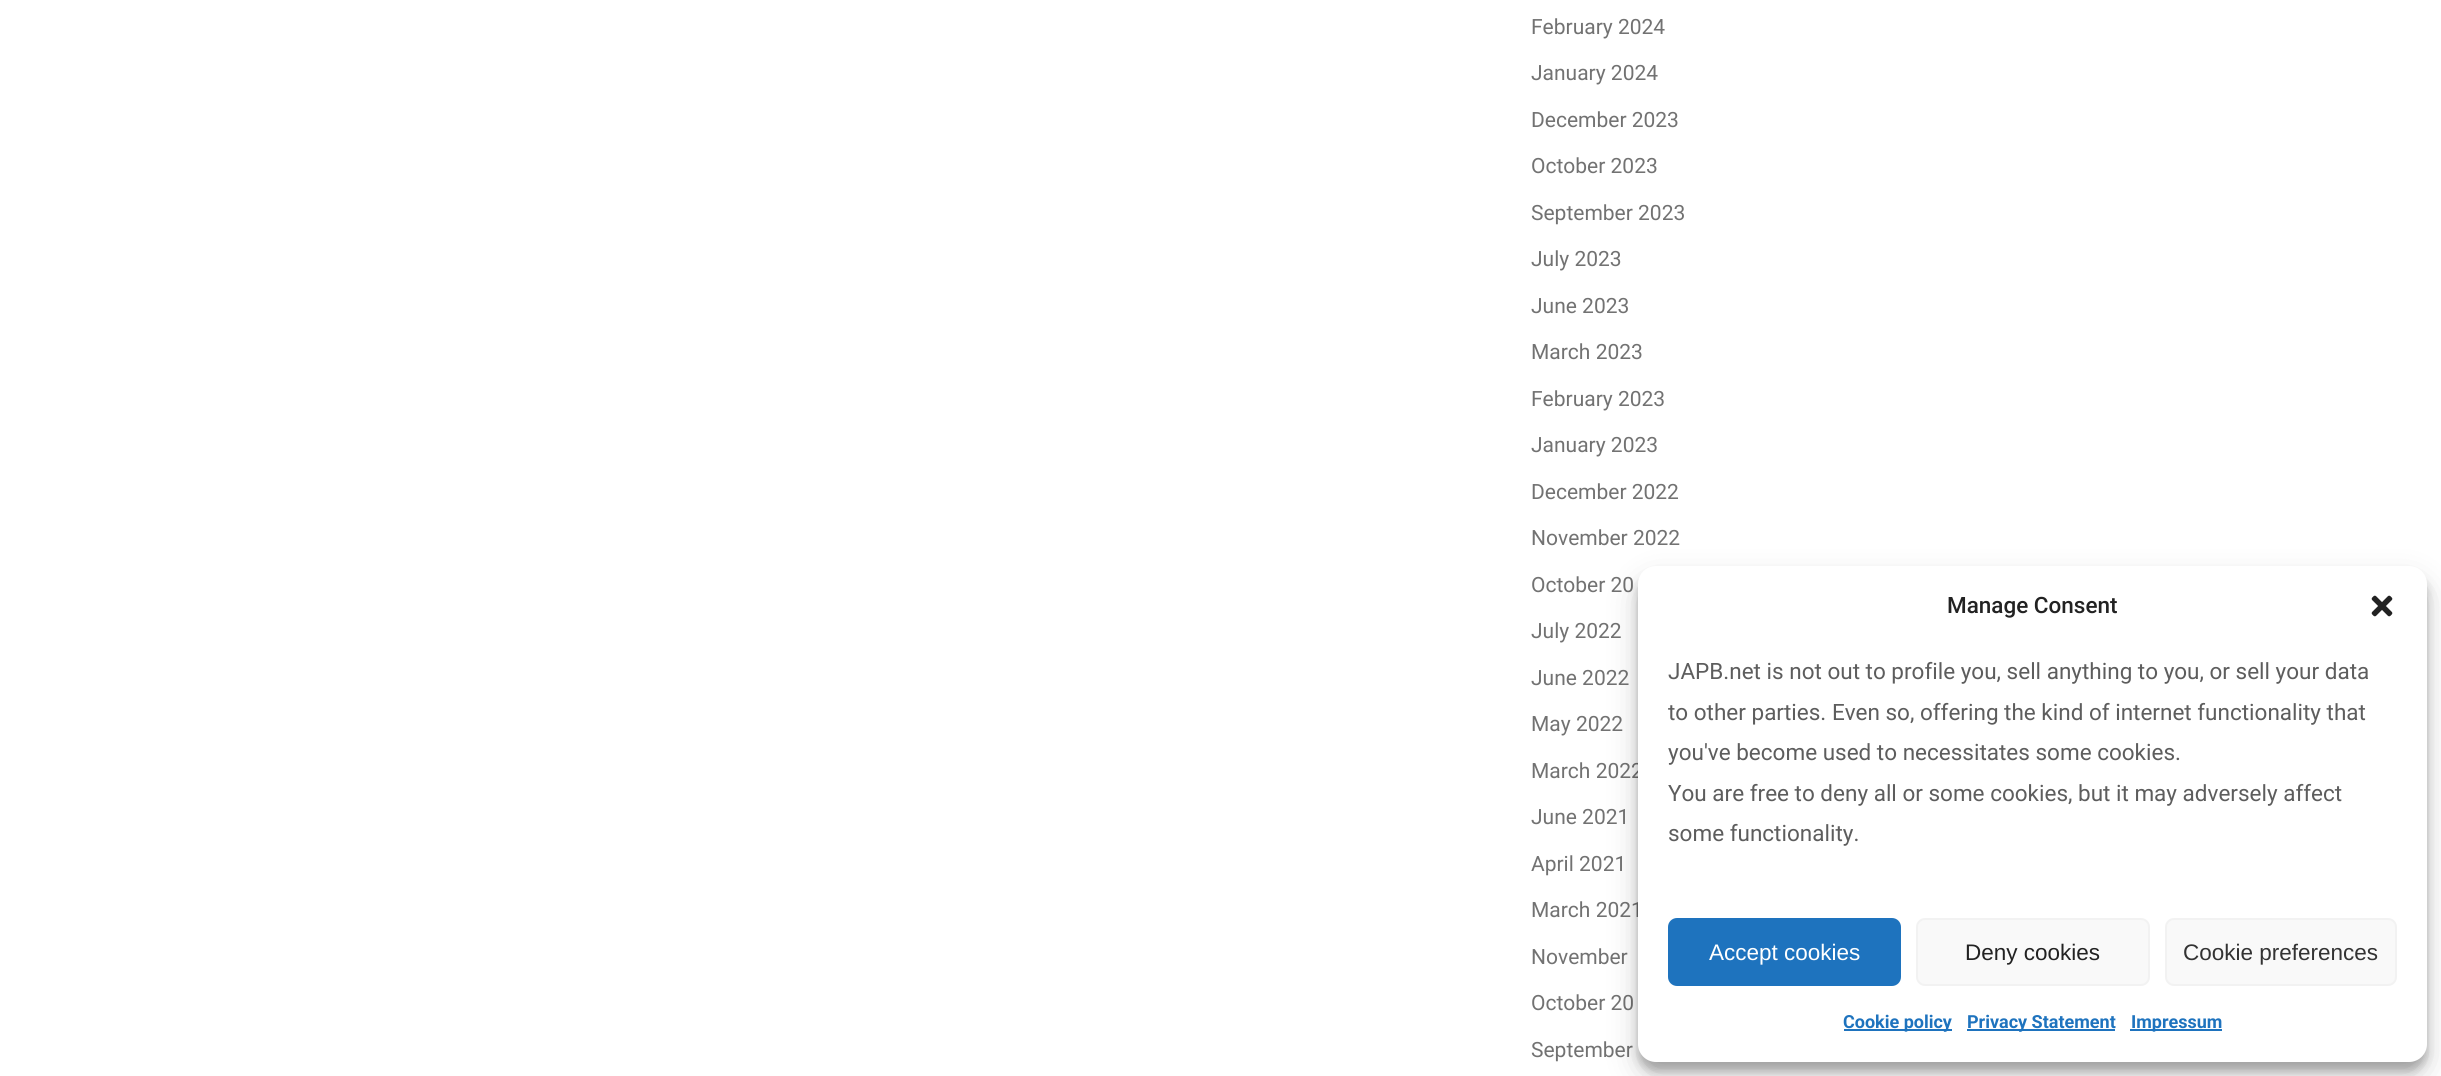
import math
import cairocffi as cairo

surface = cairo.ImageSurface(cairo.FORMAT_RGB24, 2441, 1076)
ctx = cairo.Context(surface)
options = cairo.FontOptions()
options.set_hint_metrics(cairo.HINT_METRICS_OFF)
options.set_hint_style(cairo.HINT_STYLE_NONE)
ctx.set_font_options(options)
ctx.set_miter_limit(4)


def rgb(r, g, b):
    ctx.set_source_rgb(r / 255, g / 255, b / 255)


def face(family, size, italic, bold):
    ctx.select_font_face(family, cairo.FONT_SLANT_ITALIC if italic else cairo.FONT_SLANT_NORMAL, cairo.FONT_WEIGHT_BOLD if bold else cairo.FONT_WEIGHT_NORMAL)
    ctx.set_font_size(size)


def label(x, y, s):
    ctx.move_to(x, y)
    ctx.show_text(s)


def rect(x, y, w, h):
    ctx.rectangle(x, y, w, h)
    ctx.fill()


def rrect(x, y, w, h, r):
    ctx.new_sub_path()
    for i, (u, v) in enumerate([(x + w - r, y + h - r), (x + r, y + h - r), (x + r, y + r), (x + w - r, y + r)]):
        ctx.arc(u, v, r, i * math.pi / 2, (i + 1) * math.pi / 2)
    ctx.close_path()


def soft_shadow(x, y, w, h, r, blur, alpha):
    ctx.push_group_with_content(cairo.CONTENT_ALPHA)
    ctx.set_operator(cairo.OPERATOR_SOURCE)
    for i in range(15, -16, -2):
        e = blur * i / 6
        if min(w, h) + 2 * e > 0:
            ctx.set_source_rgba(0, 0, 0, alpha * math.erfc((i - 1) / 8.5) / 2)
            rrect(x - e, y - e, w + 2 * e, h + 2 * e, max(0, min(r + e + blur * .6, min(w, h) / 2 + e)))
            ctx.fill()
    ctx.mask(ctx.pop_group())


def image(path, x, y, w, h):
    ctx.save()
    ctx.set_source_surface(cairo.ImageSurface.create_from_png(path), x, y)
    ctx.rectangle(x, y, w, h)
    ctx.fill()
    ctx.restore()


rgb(255, 255, 255)
ctx.paint()
face('Roboto', 21, 0, 0)
rgb(114, 114, 114)
label(1531, 34, 'February 2024')
label(1531, 80, 'January 2024')
label(1531, 127, 'December 2023')
label(1531, 173, 'October 2023')
label(1531, 220, 'September 2023')
label(1531, 266, 'July 2023')
label(1531, 313, 'June 2023')
label(1531, 359, 'March 2023')
label(1531, 406, 'February 2023')
label(1531, 452, 'January 2023')
label(1531, 499, 'December 2022')
label(1531, 545, 'November 2022')
label(1531, 592, 'October 20')
label(1531, 638, 'July 2022')
label(1531, 685, 'June 2022')
label(1531, 731, 'May 2022')
label(1531, 778, 'March 2022')
label(1531, 824, 'June 2021')
label(1531, 871, 'April 2021')
label(1531, 917, 'March 2021')
label(1531, 964, 'November')
label(1531, 1010, 'October 20')
label(1531, 1057, 'September')
rgb(0, 0, 0)
soft_shadow(1638, 575, 789, 496, 18, 4.5, 0.23)
soft_shadow(1638, 581, 789, 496, 18, 15, 0.19)
rgb(255, 255, 255)
rrect(1638, 566, 789, 496, 18)
ctx.fill()
face('Roboto Medium', 22.5, 0, 0)
rgb(34, 34, 34)
label(1947, 613, 'Manage Consent')
image('image0.png', 2371, 595, 22, 22)
face('Roboto', 22.5, 0, 0)
rgb(93, 93, 93)
label(1668, 679, 'JAPB.net is not out to profile you, sell anything to you, or sell your data')
label(1668, 720, 'to other parties. Even so, offering the kind of internet functionality that')
label(1668, 760, 'you\'ve become used to necessitates some cookies.')
label(1668, 801, 'You are free to deny all or some cookies, but it may adversely affect')
label(1668, 841, 'some functionality.')
rgb(30, 115, 190)
rrect(1669, 919, 231, 66, 8)
ctx.fill_preserve()
ctx.stroke()
face('Liberation Sans', 22.5, 0, 0)
rgb(255, 255, 255)
label(1709, 960, 'Accept cookies')
rgb(249, 249, 249)
rrect(1917, 919, 232, 66, 8)
ctx.fill_preserve()
rgb(242, 242, 242)
ctx.stroke()
rgb(34, 34, 34)
label(1965, 960, 'Deny cookies')
rgb(249, 249, 249)
rrect(2166, 919, 230, 66, 8)
ctx.fill_preserve()
rgb(242, 242, 242)
ctx.stroke()
rgb(51, 51, 51)
label(2183, 960, 'Cookie preferences')
rgb(30, 115, 190)
rect(1844, 1029, 108, 2)
face('Roboto', 18, 0, 1)
label(1843, 1028, 'Cookie policy')
rect(1967, 1029, 148, 2)
label(1967, 1028, 'Privacy Statement')
rect(2130, 1029, 92, 2)
label(2131, 1028, 'Impressum')
surface.write_to_png('render.png')
